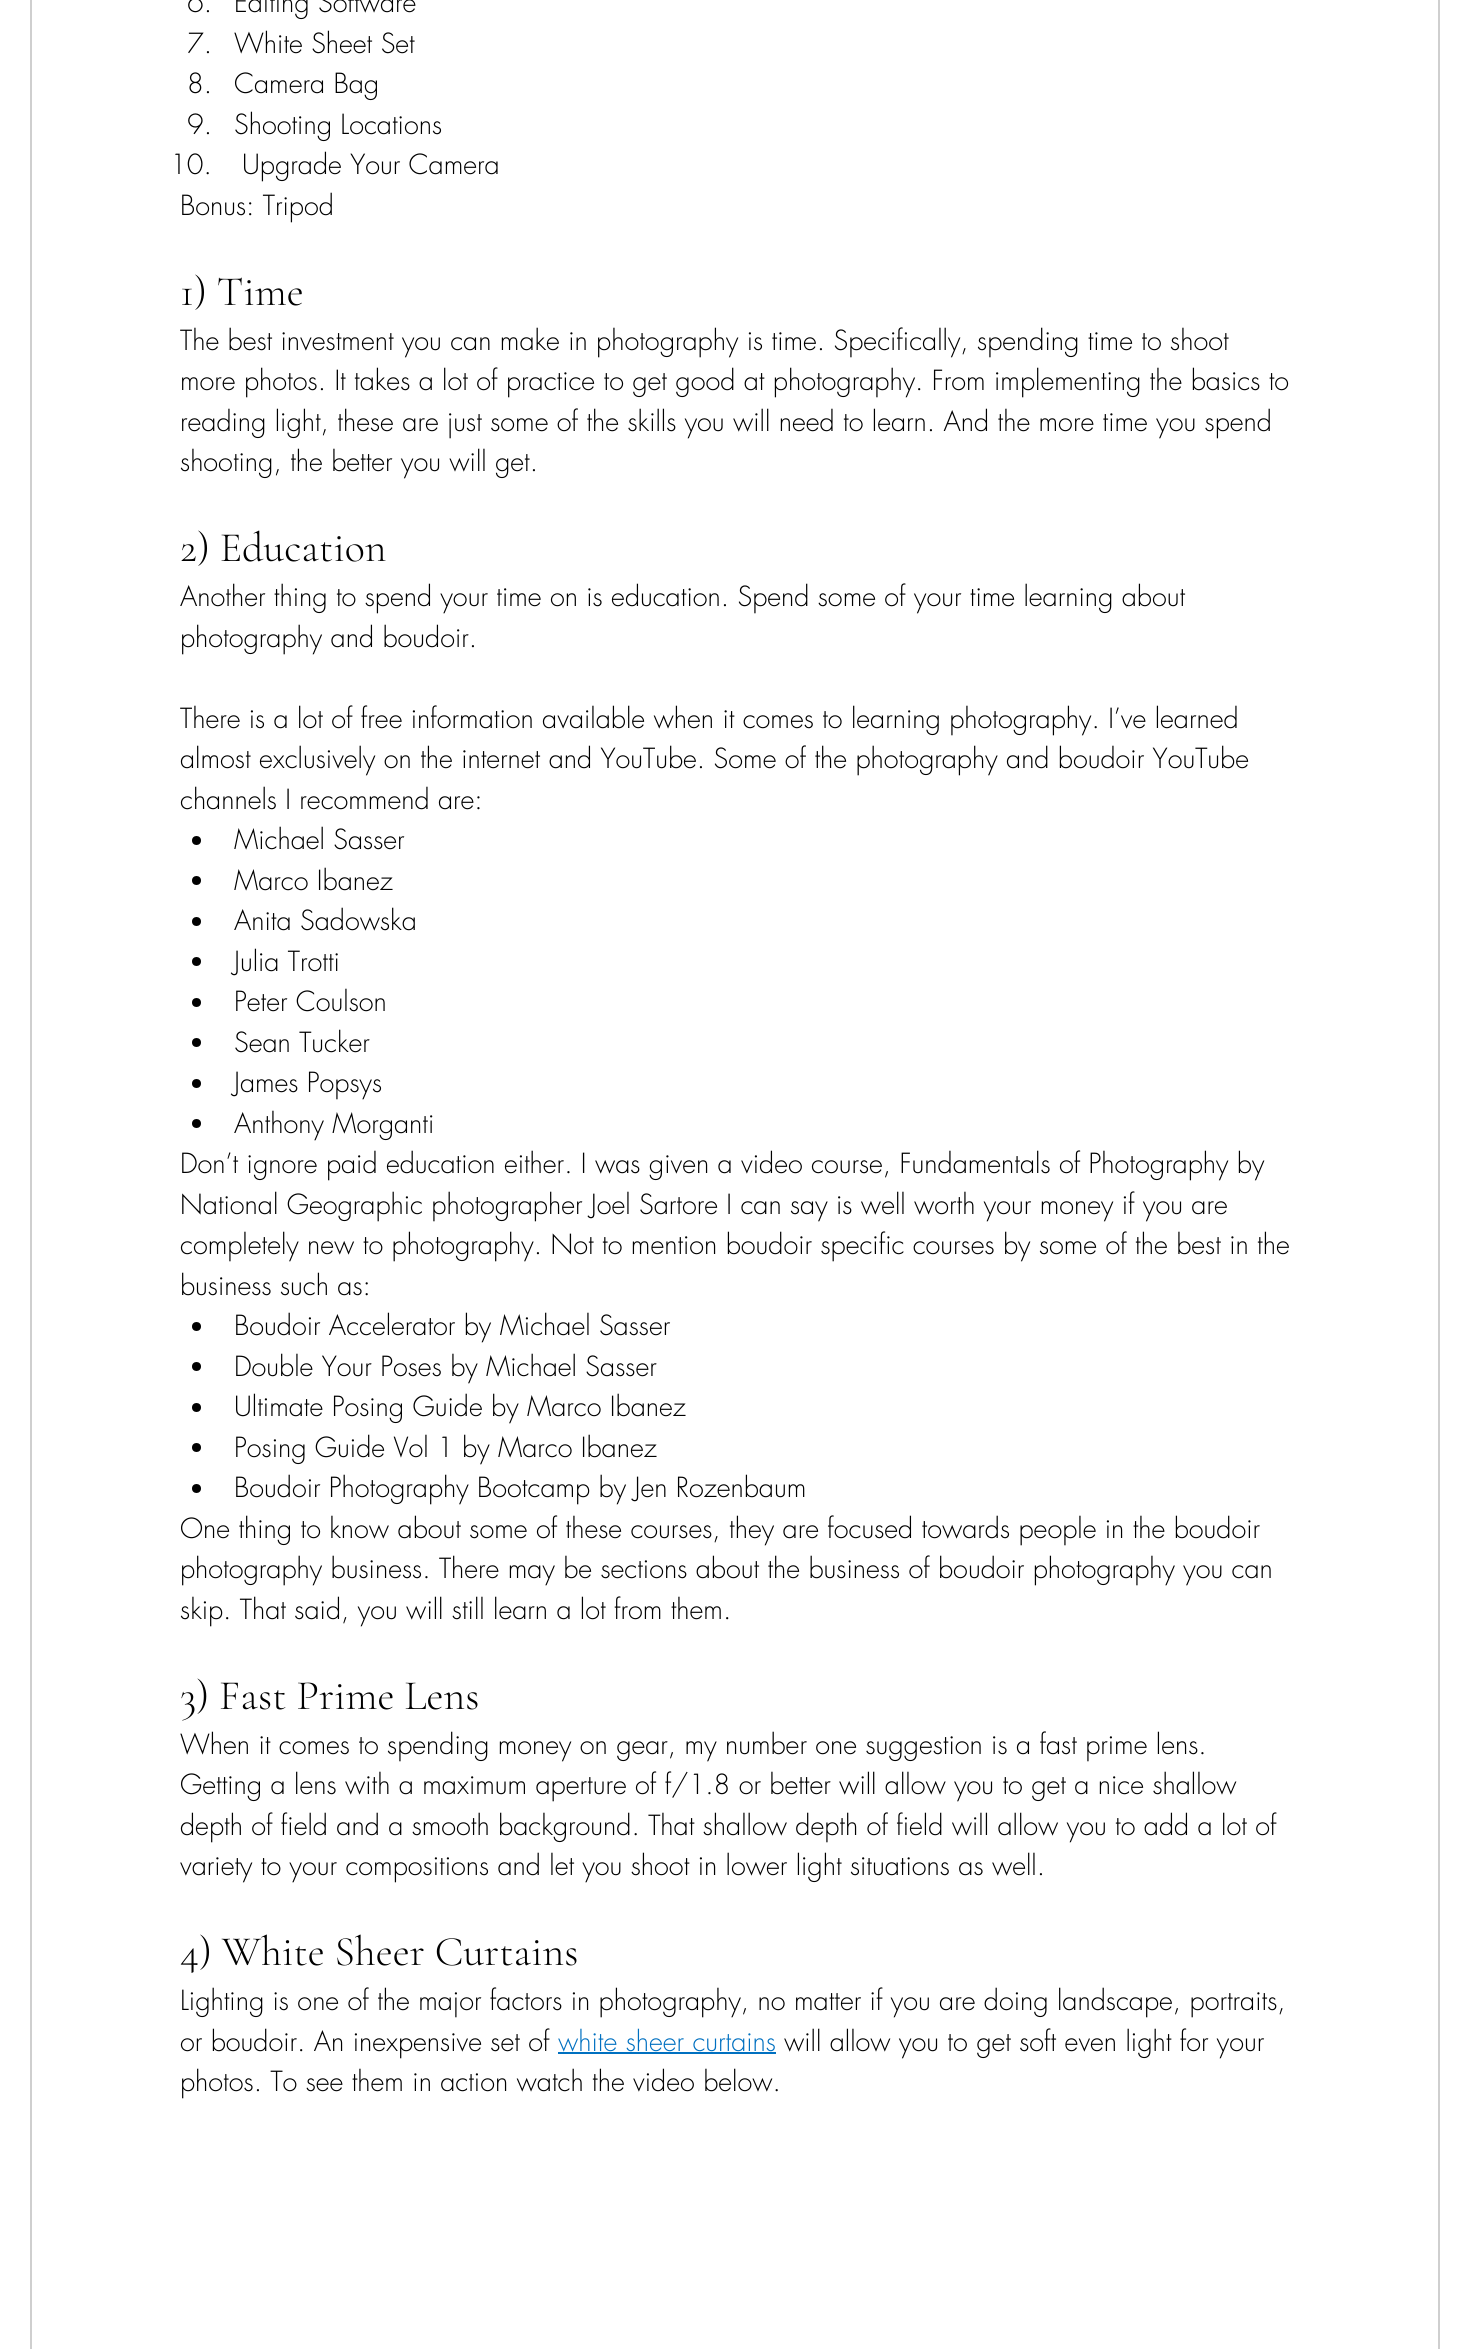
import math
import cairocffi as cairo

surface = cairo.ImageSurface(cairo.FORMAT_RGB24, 1461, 2349)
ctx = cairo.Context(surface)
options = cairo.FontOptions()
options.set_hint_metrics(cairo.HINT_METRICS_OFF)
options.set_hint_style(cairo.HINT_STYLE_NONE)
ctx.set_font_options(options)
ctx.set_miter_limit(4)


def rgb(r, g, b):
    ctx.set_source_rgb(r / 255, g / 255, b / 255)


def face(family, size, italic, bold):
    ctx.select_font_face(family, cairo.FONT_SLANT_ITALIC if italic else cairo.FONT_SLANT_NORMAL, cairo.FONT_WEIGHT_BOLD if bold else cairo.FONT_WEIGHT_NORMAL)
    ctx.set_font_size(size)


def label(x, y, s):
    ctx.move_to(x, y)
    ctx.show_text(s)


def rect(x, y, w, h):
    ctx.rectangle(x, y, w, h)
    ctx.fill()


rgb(255, 255, 255)
ctx.paint()
ctx.rectangle(31, -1, 1408, 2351)
rgb(207, 207, 207)
ctx.stroke()
face('futura Light', 27, 0, 0)
rgb(0, 0, 0)
label(187, 12, '6.')
label(234, 12, 'Editing Software')
label(187, 53, '7.')
label(234, 53, 'White Sheet Set')
label(187, 93, '8.')
label(234, 93, 'Camera Bag')
label(187, 134, '9.')
label(234, 134, 'Shooting Locations')
label(170, 174, '10.')
label(242, 174, 'Upgrade Your Camera')
label(180, 215, 'Bonus: Tripod')
face('Cormorant Garamond Light', 42, 0, 0)
label(180, 305, '1) Time')
face('futura Light', 27, 0, 0)
label(180, 350, 'The best investment you can make in photography is time. Specifically, spending time to shoot')
label(180, 390, 'more photos. It takes a lot of practice to get good at photography. From implementing the basics to')
label(180, 431, 'reading light, these are just some of the skills you will need to learn. And the more time you spend')
label(180, 471, 'shooting, the better you will get.')
face('Cormorant Garamond Light', 42, 0, 0)
label(180, 561, '2) Education')
face('futura Light', 27, 0, 0)
label(180, 606, 'Another thing to spend your time on is education. Spend some of your time learning about')
label(180, 647, 'photography and boudoir.')
label(180, 728, 'There is a lot of free information available when it comes to learning photography. I’ve learned')
label(180, 768, 'almost exclusively on the internet and YouTube. Some of the photography and boudoir YouTube')
label(180, 809, 'channels I recommend are:')
ctx.new_path()
ctx.arc(196.5, 840.5, 4.5, 0, 2 * math.pi)
ctx.fill()
label(234, 849, 'Michael Sasser')
ctx.new_path()
ctx.arc(196.5, 880.5, 4.5, 0, 2 * math.pi)
ctx.fill()
label(234, 890, 'Marco Ibanez')
ctx.new_path()
ctx.arc(196.5, 921.5, 4.5, 0, 2 * math.pi)
ctx.fill()
label(234, 930, 'Anita Sadowska')
ctx.new_path()
ctx.arc(196.5, 961.5, 4.5, 0, 2 * math.pi)
ctx.fill()
label(234, 971, 'Julia Trotti')
ctx.new_path()
ctx.arc(196.5, 1002.5, 4.5, 0, 2 * math.pi)
ctx.fill()
label(234, 1011, 'Peter Coulson')
ctx.new_path()
ctx.arc(196.5, 1042.5, 4.5, 0, 2 * math.pi)
ctx.fill()
label(234, 1052, 'Sean Tucker')
ctx.new_path()
ctx.arc(196.5, 1083.5, 4.5, 0, 2 * math.pi)
ctx.fill()
label(234, 1092, 'James Popsys')
ctx.new_path()
ctx.arc(196.5, 1123.5, 4.5, 0, 2 * math.pi)
ctx.fill()
label(234, 1133, 'Anthony Morganti')
label(180, 1173, 'Don’t ignore paid education either. I was given a video course, Fundamentals of Photography by')
label(180, 1214, 'National Geographic photographer Joel Sartore I can say is well worth your money if you are')
label(180, 1254, 'completely new to photography. Not to mention boudoir specific courses by some of the best in the')
label(180, 1295, 'business such as:')
ctx.new_path()
ctx.arc(196.5, 1326.5, 4.5, 0, 2 * math.pi)
ctx.fill()
label(234, 1335, 'Boudoir Accelerator by Michael Sasser')
ctx.new_path()
ctx.arc(196.5, 1366.5, 4.5, 0, 2 * math.pi)
ctx.fill()
label(234, 1376, 'Double Your Poses by Michael Sasser')
ctx.new_path()
ctx.arc(196.5, 1407.5, 4.5, 0, 2 * math.pi)
ctx.fill()
label(234, 1416, 'Ultimate Posing Guide by Marco Ibanez')
ctx.new_path()
ctx.arc(196.5, 1447.5, 4.5, 0, 2 * math.pi)
ctx.fill()
label(234, 1457, 'Posing Guide Vol 1 by Marco Ibanez')
ctx.new_path()
ctx.arc(196.5, 1488.5, 4.5, 0, 2 * math.pi)
ctx.fill()
label(234, 1497, 'Boudoir Photography Bootcamp by Jen Rozenbaum')
label(180, 1538, 'One thing to know about some of these courses, they are focused towards people in the boudoir')
label(180, 1578, 'photography business. There may be sections about the business of boudoir photography you can')
label(180, 1619, 'skip. That said, you will still learn a lot from them.')
face('Cormorant Garamond Light', 42, 0, 0)
label(180, 1709, '3) Fast Prime Lens')
face('futura Light', 27, 0, 0)
label(180, 1754, 'When it comes to spending money on gear, my number one suggestion is a fast prime lens.')
label(180, 1794, 'Getting a lens with a maximum aperture of f/1.8 or better will allow you to get a nice shallow')
label(180, 1835, 'depth of field and a smooth background. That shallow depth of field will allow you to add a lot of')
label(180, 1875, 'variety to your compositions and let you shoot in lower light situations as well.')
face('Cormorant Garamond Light', 42, 0, 0)
label(180, 1965, '4) White Sheer Curtains')
face('futura Light', 27, 0, 0)
label(180, 2010, 'Lighting is one of the major factors in photography, no matter if you are doing landscape, portraits,')
label(180, 2051, 'or boudoir. An inexpensive set of')
rgb(0, 112, 192)
label(558, 2051, 'white sheer curtains')
rect(558, 2052, 218, 2)
rgb(0, 0, 0)
label(784, 2051, 'will allow you to get soft even light for your')
label(180, 2091, 'photos. To see them in action watch the video below.')
surface.write_to_png('render.png')
